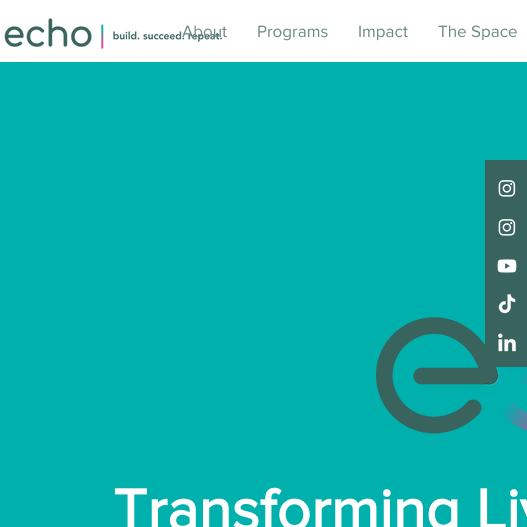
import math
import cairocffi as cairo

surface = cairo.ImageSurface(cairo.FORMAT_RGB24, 527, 527)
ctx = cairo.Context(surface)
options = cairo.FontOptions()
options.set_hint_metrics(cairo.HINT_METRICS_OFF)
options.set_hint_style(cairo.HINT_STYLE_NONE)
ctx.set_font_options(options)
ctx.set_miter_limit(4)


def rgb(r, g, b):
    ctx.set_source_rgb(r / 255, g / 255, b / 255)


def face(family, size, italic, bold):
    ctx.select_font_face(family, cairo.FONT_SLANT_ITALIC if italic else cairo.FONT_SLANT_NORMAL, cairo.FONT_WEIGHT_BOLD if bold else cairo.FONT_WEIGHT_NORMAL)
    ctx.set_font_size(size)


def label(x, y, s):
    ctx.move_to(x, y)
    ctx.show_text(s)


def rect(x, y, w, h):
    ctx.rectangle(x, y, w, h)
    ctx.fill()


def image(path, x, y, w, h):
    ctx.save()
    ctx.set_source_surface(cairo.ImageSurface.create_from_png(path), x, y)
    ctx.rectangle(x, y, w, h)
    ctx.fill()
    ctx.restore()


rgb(255, 255, 255)
ctx.paint()
image('image0.png', 4, 18, 218, 31)
face('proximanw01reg', 17, 0, 0)
rgb(108, 138, 135)
label(182, 37, 'About')
label(257, 37, 'Programs')
label(358, 37, 'Impact')
label(438, 37, 'The Space')
rgb(0, 176, 173)
rect(0, 62, 527, 465)
image('image5.png', 376, 317, 151, 117)
rgb(56, 99, 94)
rect(485, 160, 42, 207)
image('image1.png', 498, 180, 18, 17)
image('image1.png', 498, 219, 18, 17)
image('image2.png', 497, 259, 20, 14)
image('image3.png', 498, 294, 18, 20)
image('image4.png', 498, 333, 18, 19)
face('proximanw01reg', 60, 0, 1)
rgb(255, 255, 255)
label(113, 530, 'Transforming Liv')
surface.write_to_png('render.png')
